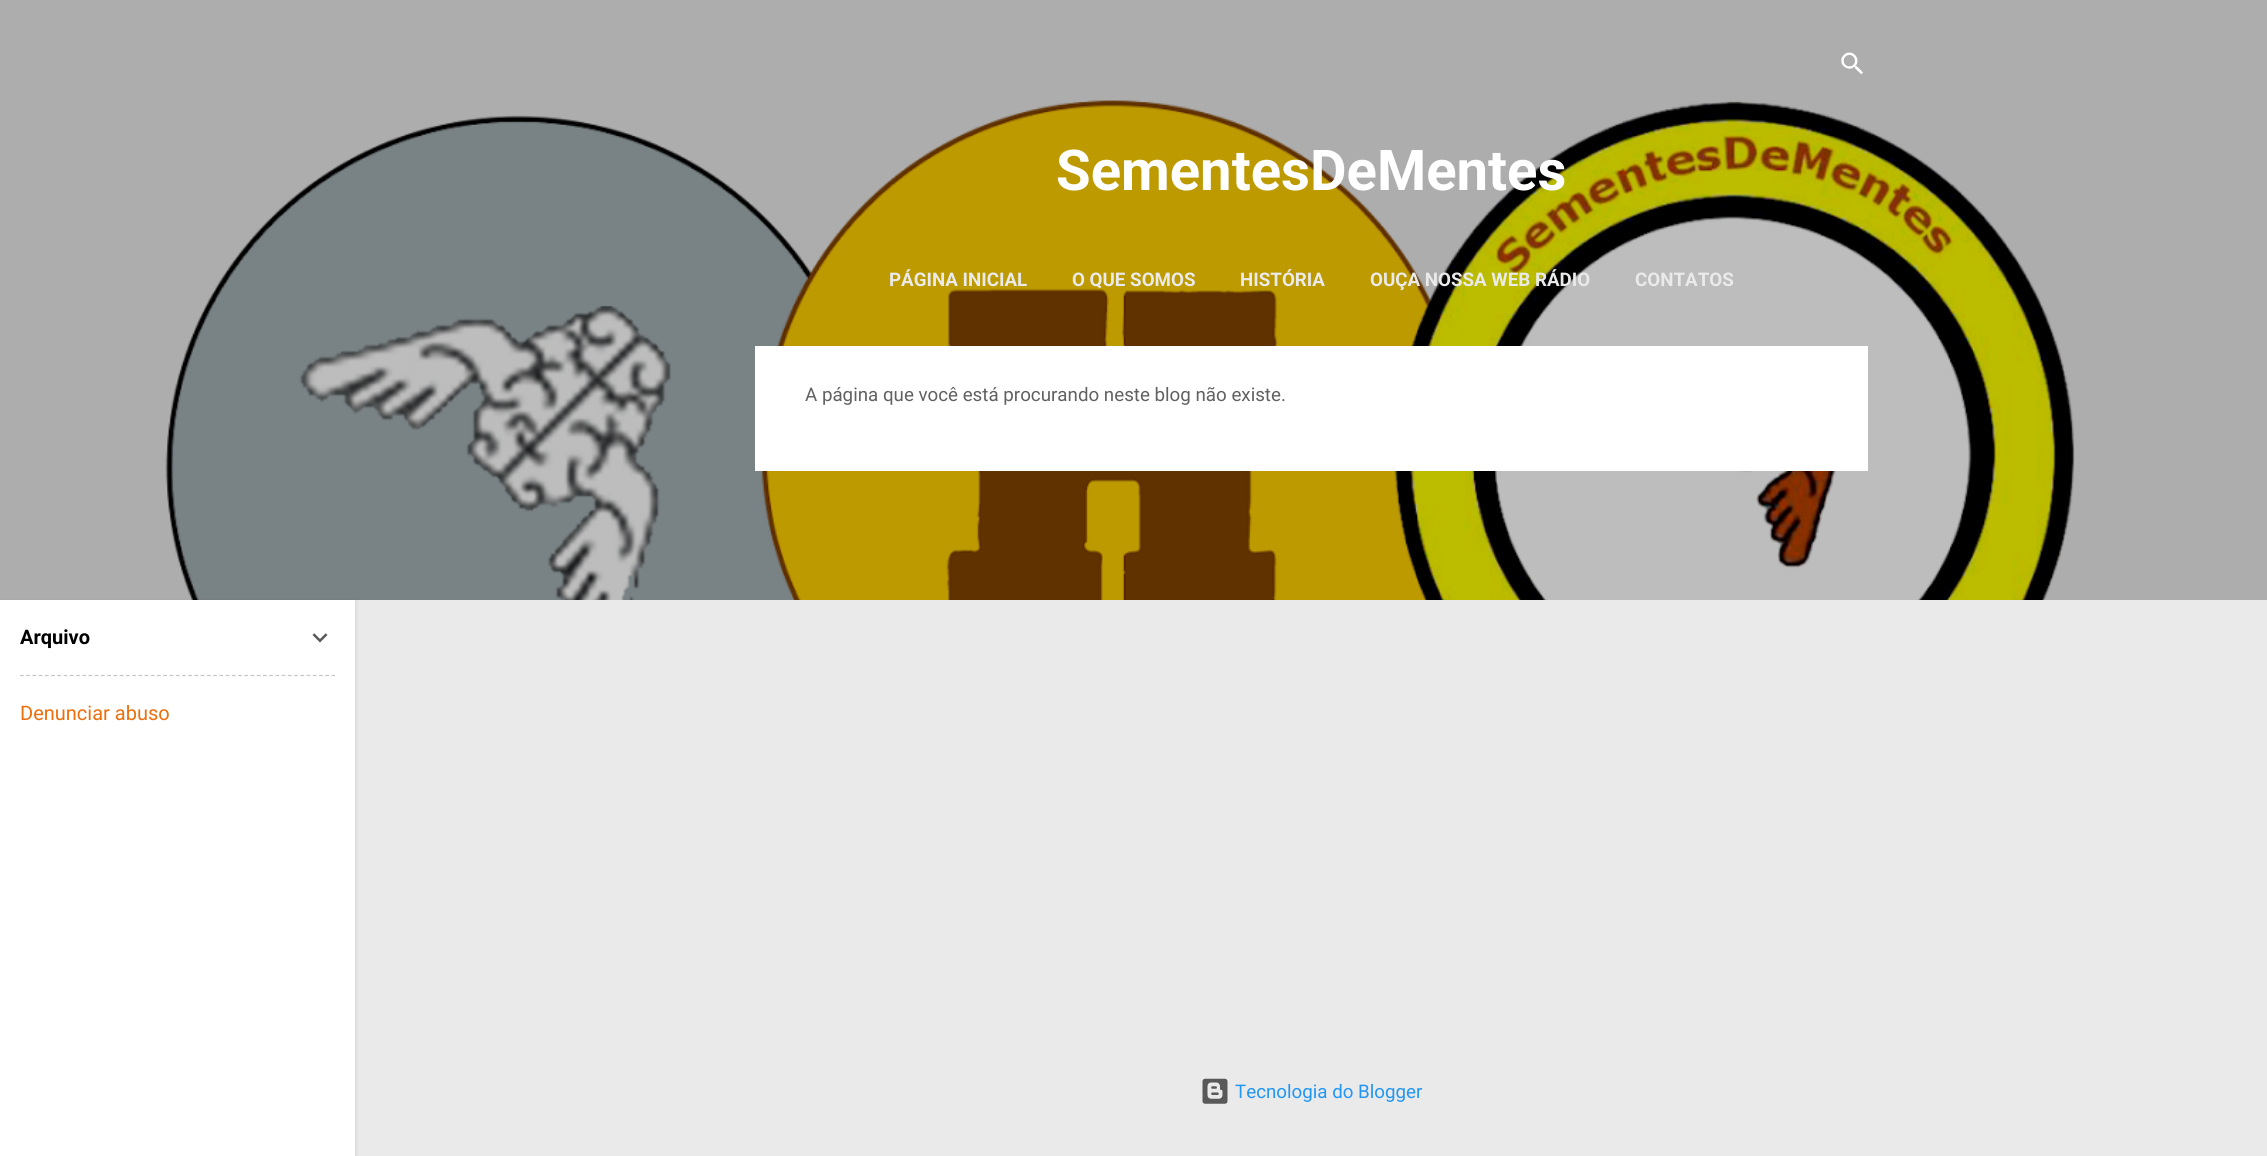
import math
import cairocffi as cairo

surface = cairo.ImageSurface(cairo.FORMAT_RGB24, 2267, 1156)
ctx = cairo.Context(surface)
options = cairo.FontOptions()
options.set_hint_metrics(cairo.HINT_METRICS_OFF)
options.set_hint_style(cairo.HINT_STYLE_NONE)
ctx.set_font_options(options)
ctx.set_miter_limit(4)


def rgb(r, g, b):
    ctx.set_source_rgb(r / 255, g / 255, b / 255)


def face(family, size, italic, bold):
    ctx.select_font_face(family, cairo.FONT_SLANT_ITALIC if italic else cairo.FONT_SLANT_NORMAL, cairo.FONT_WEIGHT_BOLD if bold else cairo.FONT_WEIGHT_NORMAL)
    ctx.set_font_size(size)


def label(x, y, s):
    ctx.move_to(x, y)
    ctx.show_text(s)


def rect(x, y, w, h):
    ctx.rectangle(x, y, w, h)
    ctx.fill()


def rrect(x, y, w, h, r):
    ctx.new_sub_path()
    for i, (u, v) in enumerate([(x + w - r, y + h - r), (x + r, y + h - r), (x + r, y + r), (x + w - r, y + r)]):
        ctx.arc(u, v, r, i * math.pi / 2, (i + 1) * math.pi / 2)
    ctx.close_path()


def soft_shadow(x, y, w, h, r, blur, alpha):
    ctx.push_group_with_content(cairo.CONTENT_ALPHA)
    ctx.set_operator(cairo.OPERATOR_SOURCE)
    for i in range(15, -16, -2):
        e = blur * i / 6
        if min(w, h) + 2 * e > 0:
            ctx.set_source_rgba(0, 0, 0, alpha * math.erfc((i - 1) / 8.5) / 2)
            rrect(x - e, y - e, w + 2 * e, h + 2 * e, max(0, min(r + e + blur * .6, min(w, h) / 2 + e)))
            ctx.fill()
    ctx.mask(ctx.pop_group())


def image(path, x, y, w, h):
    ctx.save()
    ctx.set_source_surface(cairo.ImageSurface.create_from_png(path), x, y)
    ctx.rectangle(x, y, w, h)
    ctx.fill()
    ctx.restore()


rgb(234, 234, 234)
ctx.paint()
rgb(173, 173, 173)
rect(0, 0, 2267, 600)
image('image1.png', 165, 100, 1910, 500)
rgb(0, 0, 0)
soft_shadow(1, 601, 355, 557, 0, 2, 0.1)
rgb(255, 255, 255)
rect(0, 600, 355, 556)
face('Roboto', 20, 0, 1)
rgb(0, 0, 0)
label(20, 644, 'Arquivo')
image('image0.png', 312, 633, 16, 10)
ctx.new_path()
ctx.move_to(20, 675.5)
ctx.line_to(335, 675.5)
rgb(198, 198, 198)
ctx.set_line_width(1.2)
ctx.set_dash([3.75, 2.48])
ctx.stroke()
face('Roboto', 20, 0, 0)
rgb(237, 110, 13)
label(20, 720, 'Denunciar abuso')
image('image2.png', 1841, 52, 22, 23)
face('Roboto', 56.25, 0, 1)
rgb(255, 255, 255)
label(1056, 190, 'SementesDeMentes')
face('Roboto', 18.75, 0, 1)
rgb(234, 234, 234)
label(889, 286, 'PÁGINA INICIAL')
label(1072, 286, 'O QUE SOMOS')
label(1240, 286, 'HISTÓRIA')
label(1370, 286, 'OUÇA NOSSA WEB RÁDIO')
label(1635, 286, 'CONTATOS')
rgb(255, 255, 255)
rect(755, 346, 1113, 125)
face('Roboto', 18.75, 0, 0)
rgb(97, 97, 97)
label(805, 401, 'A página que você está procurando neste blog não existe.')
image('image3.png', 1202, 1078, 26, 26)
rgb(33, 150, 243)
label(1235, 1098, 'Tecnologia do Blogger')
surface.write_to_png('render.png')
